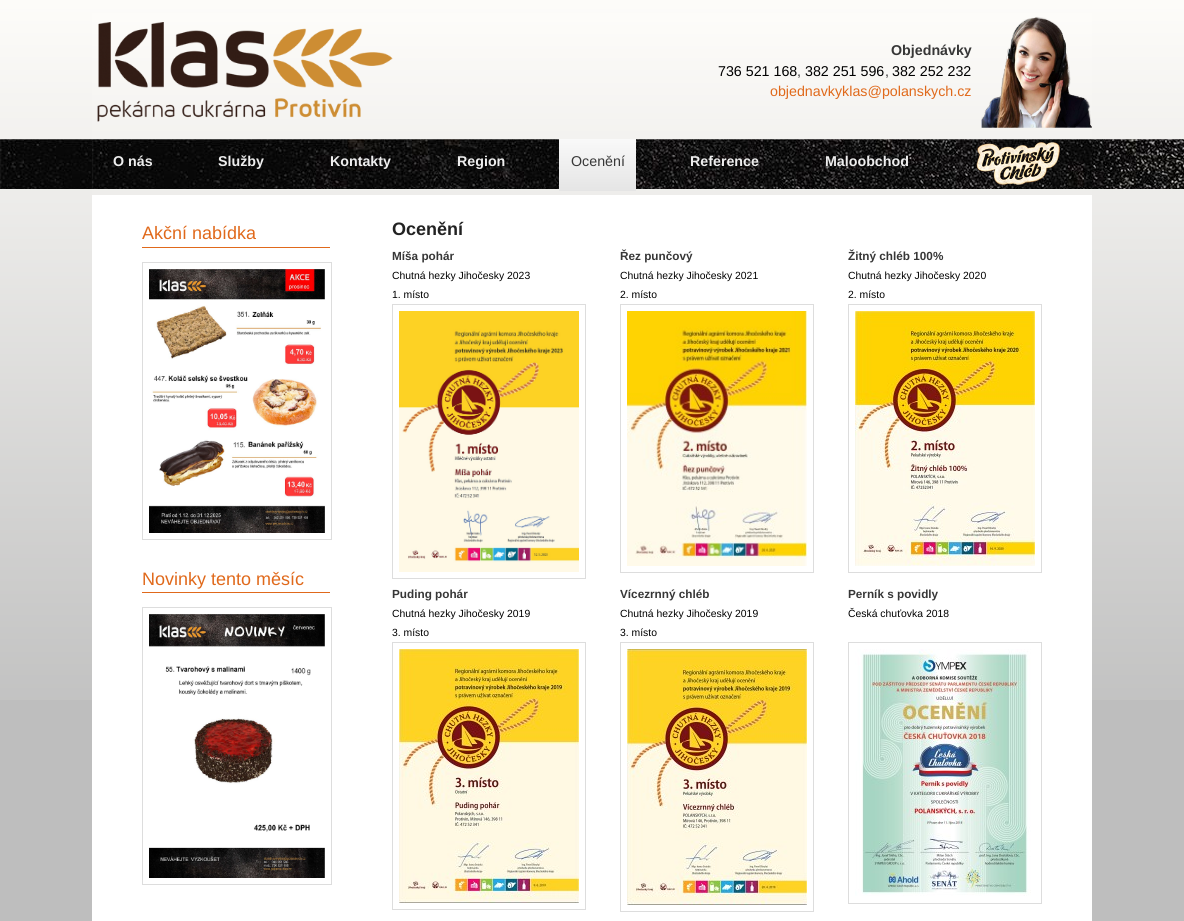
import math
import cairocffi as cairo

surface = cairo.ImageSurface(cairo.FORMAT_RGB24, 1184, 921)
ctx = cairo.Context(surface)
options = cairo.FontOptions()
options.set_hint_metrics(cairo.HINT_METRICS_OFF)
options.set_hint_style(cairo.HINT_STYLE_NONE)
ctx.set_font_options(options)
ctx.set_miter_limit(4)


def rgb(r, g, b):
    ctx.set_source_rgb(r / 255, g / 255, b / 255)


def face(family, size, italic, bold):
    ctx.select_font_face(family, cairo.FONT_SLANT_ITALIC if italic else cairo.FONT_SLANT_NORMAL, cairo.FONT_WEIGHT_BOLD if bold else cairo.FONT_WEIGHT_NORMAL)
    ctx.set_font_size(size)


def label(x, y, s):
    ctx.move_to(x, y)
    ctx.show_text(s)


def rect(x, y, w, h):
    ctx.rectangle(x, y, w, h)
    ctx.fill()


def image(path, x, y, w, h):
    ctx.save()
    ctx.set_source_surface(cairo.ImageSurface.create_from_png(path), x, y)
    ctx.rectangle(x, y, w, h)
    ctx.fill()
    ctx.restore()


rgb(190, 190, 190)
ctx.paint()
image('image0.png', 0, 0, 1184, 700)
image('image1.png', 92, 13, 1000, 182)
image('image2.png', 97, 22, 296, 100)
image('image3.png', 981, 16, 111, 112)
face('Liberation Sans', 14.25, 0, 1)
rgb(55, 55, 55)
label(891, 55, 'Objednávky')
face('Liberation Sans', 14.25, 0, 0)
rgb(0, 0, 0)
label(718, 76, '736 521 168')
rgb(55, 55, 55)
label(797, 76, ',')
rgb(0, 0, 0)
label(805, 76, '382 251 596')
rgb(55, 55, 55)
label(885, 76, ',')
rgb(0, 0, 0)
label(892, 76, '382 252 232')
rgb(224, 105, 27)
label(770, 96, 'objednavkyklas@polanskych.cz')
image('image14.png', 0, 139, 1184, 50)
image('image4.png', 92, 139, 1000, 50)
face('Liberation Sans', 14.25, 0, 1)
rgb(238, 238, 238)
label(113, 166, 'O nás')
label(218, 166, 'Služby')
label(330, 166, 'Kontakty')
label(457, 166, 'Region')
gradient = cairo.LinearGradient(598, 139, 598, 191)
gradient.add_color_stop_rgba(0, 0.976, 0.976, 0.976, 1)
gradient.add_color_stop_rgba(1, 0.898, 0.898, 0.898, 1)
ctx.set_source(gradient)
rect(559, 139, 77, 52)
face('Liberation Sans', 14.25, 0, 0)
rgb(55, 55, 55)
label(571, 166, 'Ocenění')
face('Liberation Sans', 14.25, 0, 1)
rgb(238, 238, 238)
label(690, 166, 'Reference')
label(825, 166, 'Maloobchod')
image('image5.png', 976, 142, 84, 43)
rgb(255, 255, 255)
rect(92, 195, 1000, 726)
rgb(224, 105, 27)
rect(142, 247, 188, 1)
face('Liberation Sans', 18, 0, 0)
label(142, 239, 'Akční nabídka')
ctx.rectangle(142.5, 262.5, 189, 277)
rgb(221, 221, 221)
ctx.set_line_width(1)
ctx.stroke()
image('image6.png', 149, 269, 176, 264)
rgb(224, 105, 27)
rect(142, 592, 188, 1)
label(142, 585, 'Novinky tento měsíc')
ctx.rectangle(142.5, 607.5, 189, 277)
rgb(221, 221, 221)
ctx.stroke()
image('image7.png', 149, 614, 176, 264)
face('Liberation Sans', 18, 0, 1)
rgb(34, 34, 34)
label(392, 235, 'Ocenění')
face('Liberation Sans', 11.75, 0, 1)
rgb(55, 55, 55)
label(392, 260, 'Míša pohár')
face('Liberation Sans', 10.4, 0, 0)
rgb(0, 0, 0)
label(392, 279, 'Chutná hezky Jihočesky 2023')
label(392, 298, '1. místo')
ctx.rectangle(392.5, 304.5, 193, 274)
rgb(221, 221, 221)
ctx.stroke()
image('image8.png', 399, 311, 180, 261)
face('Liberation Sans', 11.75, 0, 1)
rgb(55, 55, 55)
label(620, 260, 'Řez punčový')
face('Liberation Sans', 10.4, 0, 0)
rgb(0, 0, 0)
label(620, 279, 'Chutná hezky Jihočesky 2021')
label(620, 298, '2. místo')
ctx.rectangle(620.5, 304.5, 193, 268)
rgb(221, 221, 221)
ctx.stroke()
image('image9.png', 627, 311, 180, 255)
face('Liberation Sans', 11.75, 0, 1)
rgb(55, 55, 55)
label(848, 260, 'Žitný chléb 100%')
face('Liberation Sans', 10.4, 0, 0)
rgb(0, 0, 0)
label(848, 279, 'Chutná hezky Jihočesky 2020')
label(848, 298, '2. místo')
ctx.rectangle(848.5, 304.5, 193, 268)
rgb(221, 221, 221)
ctx.stroke()
image('image10.png', 855, 311, 180, 255)
face('Liberation Sans', 11.75, 0, 1)
rgb(55, 55, 55)
label(392, 598, 'Puding pohár')
face('Liberation Sans', 10.4, 0, 0)
rgb(0, 0, 0)
label(392, 617, 'Chutná hezky Jihočesky 2019')
label(392, 636, '3. místo')
ctx.rectangle(392.5, 642.5, 193, 267)
rgb(221, 221, 221)
ctx.stroke()
image('image11.png', 399, 649, 180, 254)
face('Liberation Sans', 11.75, 0, 1)
rgb(55, 55, 55)
label(620, 598, 'Vícezrnný chléb')
face('Liberation Sans', 10.4, 0, 0)
rgb(0, 0, 0)
label(620, 617, 'Chutná hezky Jihočesky 2019')
label(620, 636, '3. místo')
ctx.rectangle(620.5, 642.5, 193, 269)
rgb(221, 221, 221)
ctx.stroke()
image('image12.png', 627, 649, 180, 256)
face('Liberation Sans', 11.75, 0, 1)
rgb(55, 55, 55)
label(848, 598, 'Perník s povidly')
face('Liberation Sans', 10.4, 0, 0)
rgb(0, 0, 0)
label(848, 617, 'Česká chuťovka 2018')
ctx.rectangle(848.5, 642.5, 193, 261)
rgb(221, 221, 221)
ctx.stroke()
image('image13.png', 855, 649, 176, 247)
surface.write_to_png('render.png')
